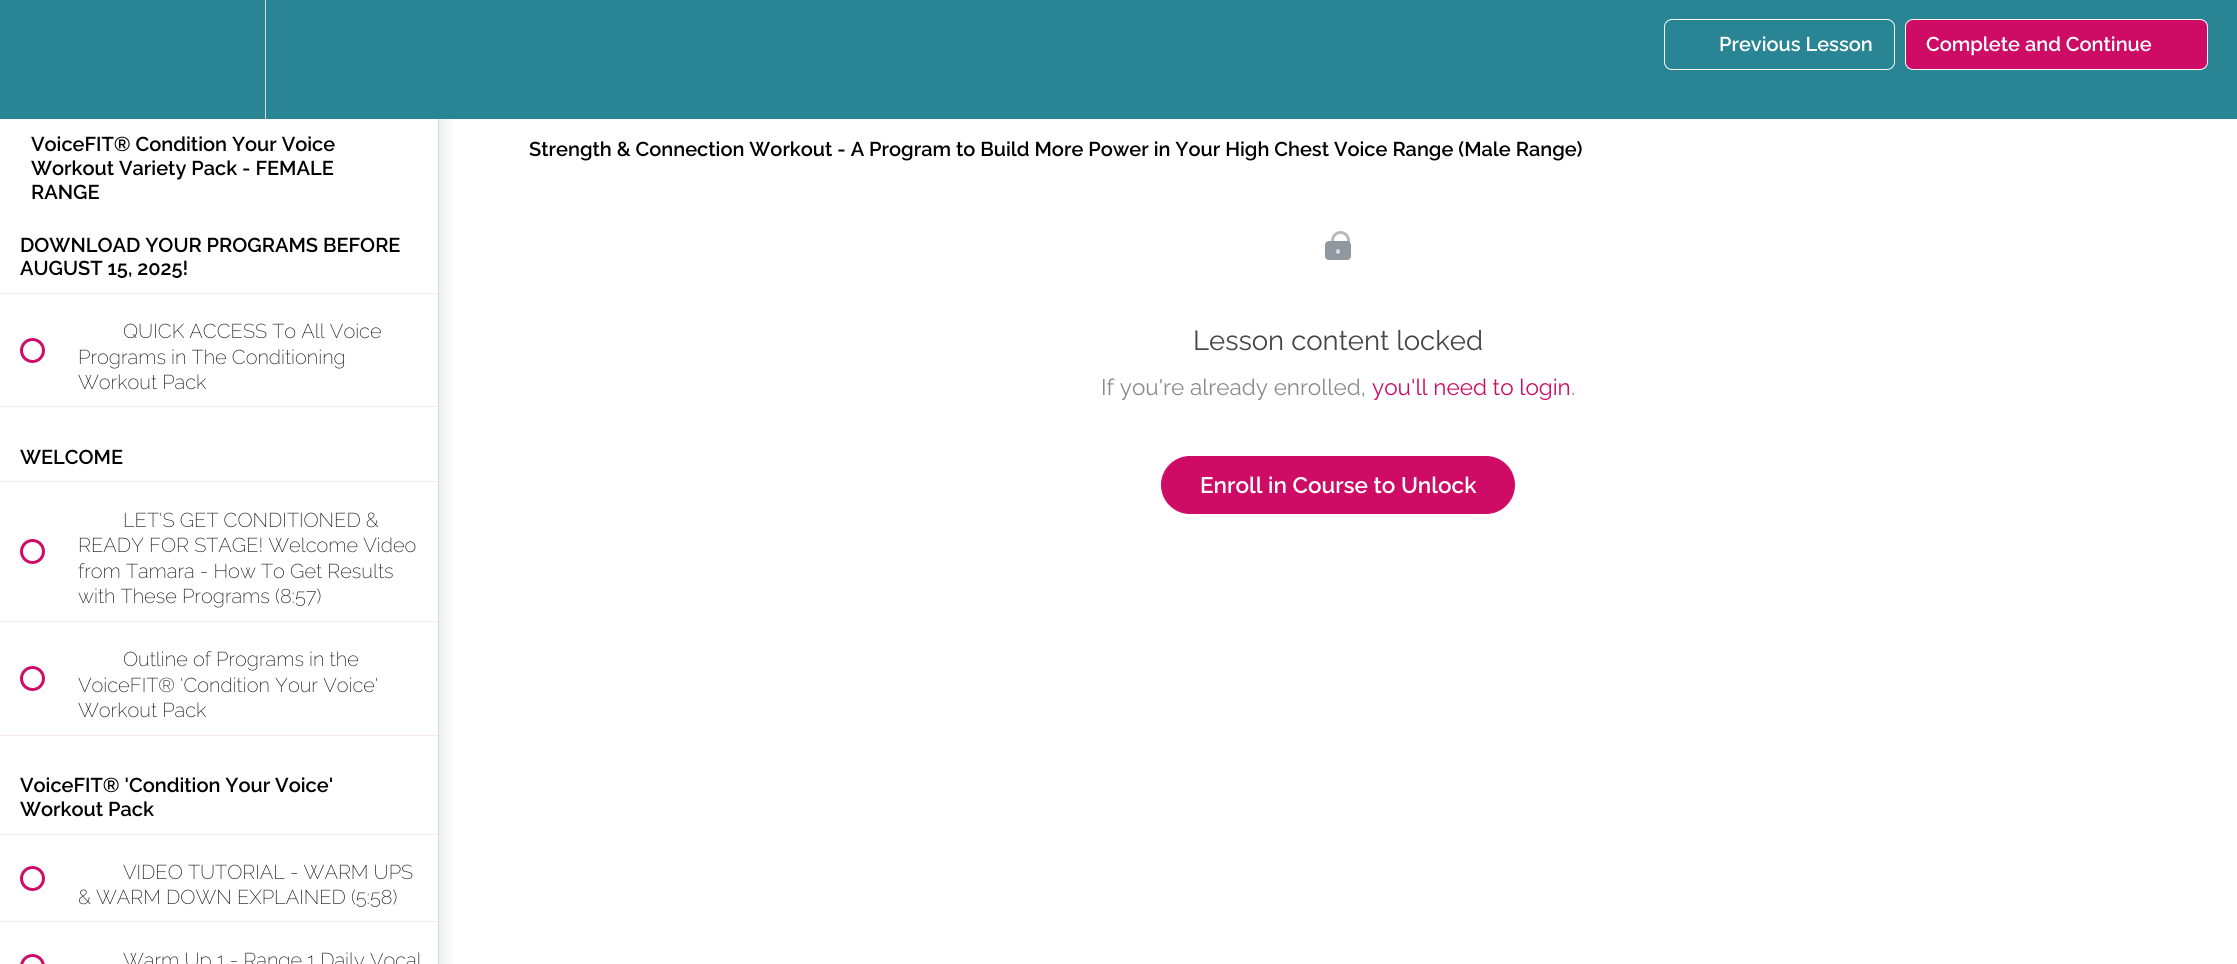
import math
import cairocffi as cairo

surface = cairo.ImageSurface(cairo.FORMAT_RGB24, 2237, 964)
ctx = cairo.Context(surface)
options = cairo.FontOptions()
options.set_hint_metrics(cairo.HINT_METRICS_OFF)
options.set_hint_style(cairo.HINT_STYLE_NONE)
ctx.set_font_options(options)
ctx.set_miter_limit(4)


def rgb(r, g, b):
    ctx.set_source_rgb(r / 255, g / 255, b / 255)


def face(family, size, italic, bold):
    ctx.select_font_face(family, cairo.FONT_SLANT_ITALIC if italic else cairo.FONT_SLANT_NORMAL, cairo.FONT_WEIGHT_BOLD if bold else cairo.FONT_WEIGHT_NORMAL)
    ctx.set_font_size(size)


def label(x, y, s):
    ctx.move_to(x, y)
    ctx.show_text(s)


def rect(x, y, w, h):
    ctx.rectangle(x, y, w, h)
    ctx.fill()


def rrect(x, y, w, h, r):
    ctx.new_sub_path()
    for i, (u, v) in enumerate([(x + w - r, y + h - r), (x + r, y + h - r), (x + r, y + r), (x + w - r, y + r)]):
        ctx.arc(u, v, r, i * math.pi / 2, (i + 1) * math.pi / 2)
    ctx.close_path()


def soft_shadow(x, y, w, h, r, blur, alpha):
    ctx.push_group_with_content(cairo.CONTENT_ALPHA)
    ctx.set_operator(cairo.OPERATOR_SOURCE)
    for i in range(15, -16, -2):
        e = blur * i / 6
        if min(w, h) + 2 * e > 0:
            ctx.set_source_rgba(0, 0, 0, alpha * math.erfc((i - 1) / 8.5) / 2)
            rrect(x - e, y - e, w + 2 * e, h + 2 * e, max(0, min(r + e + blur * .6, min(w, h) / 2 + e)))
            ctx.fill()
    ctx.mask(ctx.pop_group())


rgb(255, 255, 255)
ctx.paint()
ctx.save()
ctx.rectangle(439, 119, 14, 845)
ctx.clip()
rgb(32, 39, 45)
soft_shadow(0, 109, 439, 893, 0, 12.5, 0.15)
ctx.restore()
rgb(41, 133, 147)
rect(0, 0, 2237, 119)
rgb(215, 218, 219)
rect(265, 0, 1, 119)
rrect(1664.5, 19.5, 230, 50, 7.5)
rgb(252, 252, 252)
ctx.set_line_width(1)
ctx.stroke()
face('Raleway SemiBold', 20, 0, 0)
rgb(255, 255, 255)
label(1719, 51, 'Previous Lesson')
rgb(206, 12, 102)
rrect(1905.5, 19.5, 302, 50, 7.5)
ctx.fill_preserve()
rgb(252, 252, 252)
ctx.stroke()
rgb(255, 255, 255)
label(1926, 51, 'Complete and Continue')
rgb(215, 218, 219)
rect(438, 119, 1, 845)
rgb(0, 0, 0)
label(31, 151, 'VoiceFIT® Condition Your Voice')
label(31, 175, 'Workout Variety Pack - FEMALE')
label(31, 199, 'RANGE')
rgb(250, 231, 240)
rect(0, 293, 438, 1)
rgb(0, 0, 0)
label(20, 252, 'DOWNLOAD YOUR PROGRAMS BEFORE')
label(20, 275, 'AUGUST 15, 2025!')
rgb(250, 231, 240)
rect(0, 406, 438, 1)
ctx.new_path()
ctx.arc(32.5, 350.5, 11, 0, 2 * math.pi)
rgb(206, 12, 102)
ctx.set_line_width(3)
ctx.stroke()
face('Raleway ExtraLight', 20, 0, 0)
rgb(26, 26, 26)
label(123, 338, 'QUICK ACCESS To All Voice')
label(78, 364, 'Programs in The Conditioning')
label(78, 389, 'Workout Pack')
rgb(250, 231, 240)
rect(0, 481, 438, 1)
face('Raleway SemiBold', 20, 0, 0)
rgb(0, 0, 0)
label(20, 464, 'WELCOME')
rgb(250, 231, 240)
rect(0, 621, 438, 1)
ctx.new_path()
ctx.arc(32.5, 551.5, 11, 0, 2 * math.pi)
rgb(206, 12, 102)
ctx.stroke()
face('Raleway ExtraLight', 20, 0, 0)
rgb(26, 26, 26)
label(123, 527, 'LET\'S GET CONDITIONED &')
label(78, 552, 'READY FOR STAGE! Welcome Video')
label(78, 578, 'from Tamara - How To Get Results')
label(78, 603, 'with These Programs (8:57)')
rgb(250, 231, 240)
rect(0, 735, 438, 1)
ctx.new_path()
ctx.arc(32.5, 678.5, 11, 0, 2 * math.pi)
rgb(206, 12, 102)
ctx.stroke()
rgb(26, 26, 26)
label(123, 666, 'Outline of Programs in the')
label(78, 692, 'VoiceFIT® \'Condition Your Voice\'')
label(78, 717, 'Workout Pack')
rgb(250, 231, 240)
rect(0, 834, 438, 1)
face('Raleway SemiBold', 20, 0, 0)
rgb(0, 0, 0)
label(20, 792, 'VoiceFIT® \'Condition Your Voice\'')
label(20, 816, 'Workout Pack')
rgb(250, 231, 240)
rect(0, 921, 438, 1)
ctx.new_path()
ctx.arc(32.5, 878.5, 11, 0, 2 * math.pi)
rgb(206, 12, 102)
ctx.stroke()
face('Raleway ExtraLight', 20, 0, 0)
rgb(26, 26, 26)
label(123, 879, 'VIDEO TUTORIAL - WARM UPS')
label(78, 904, '& WARM DOWN EXPLAINED (5:58)')
ctx.new_path()
ctx.arc(32.5, 966.5, 11, 0, 2 * math.pi)
rgb(206, 12, 102)
ctx.stroke()
rgb(26, 26, 26)
label(123, 967, 'Warm Up 1 - Range 1 Daily Vocal')
face('Raleway SemiBold', 20, 0, 0)
rgb(0, 0, 0)
label(529, 156, 'Strength & Connection Workout - A Program to Build More Power in Your High Chest Voice Range (Male Range)')
rrect(1332.5, 232.5, 16, 25, 8)
rgb(181, 186, 191)
ctx.stroke()
rgb(143, 152, 159)
rrect(1325, 241, 26, 19, 4)
ctx.fill()
rgb(211, 215, 220)
rrect(1336, 249, 4, 5, 2)
ctx.fill()
face('Raleway', 27.5, 0, 0)
rgb(69, 69, 69)
label(1193, 350, 'Lesson content locked')
face('Raleway', 22.5, 0, 0)
rgb(139, 139, 139)
label(1101, 395, 'If you\'re already enrolled,')
rgb(206, 12, 102)
label(1372, 395, 'you\'ll need to login')
rgb(139, 139, 139)
label(1571, 395, '.')
rgb(206, 12, 102)
rrect(1161.5, 456.5, 353, 57, 28.5)
ctx.fill_preserve()
ctx.set_line_width(1)
ctx.stroke()
face('Raleway SemiBold', 22.5, 0, 0)
rgb(255, 255, 255)
label(1200, 493, 'Enroll in Course to Unlock')
surface.write_to_png('render.png')
